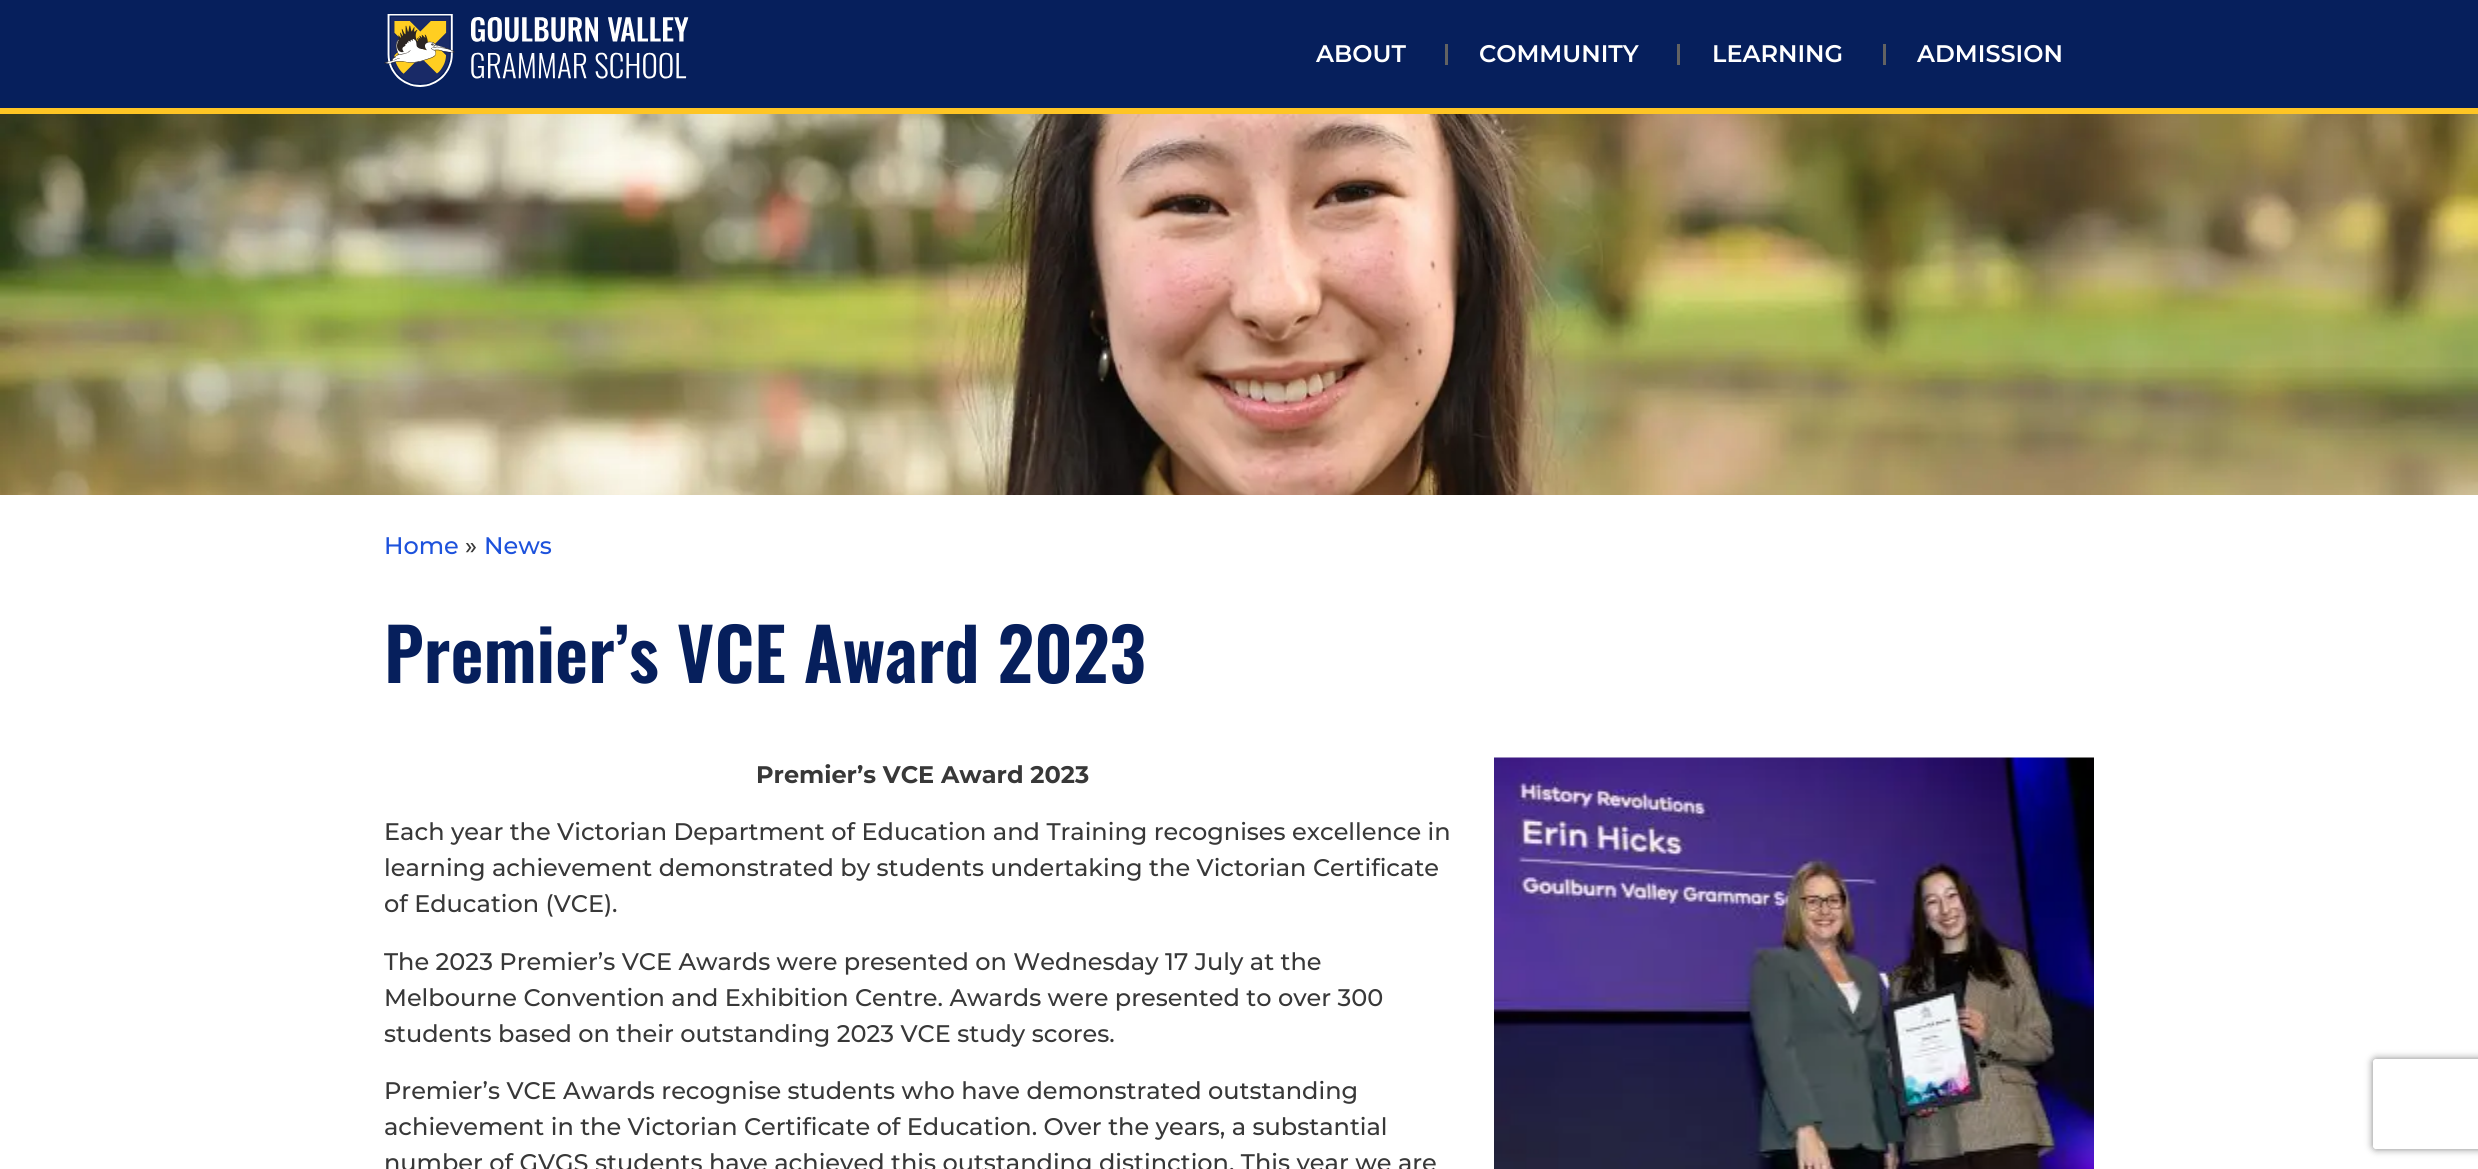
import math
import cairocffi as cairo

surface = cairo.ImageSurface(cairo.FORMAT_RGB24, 2478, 1169)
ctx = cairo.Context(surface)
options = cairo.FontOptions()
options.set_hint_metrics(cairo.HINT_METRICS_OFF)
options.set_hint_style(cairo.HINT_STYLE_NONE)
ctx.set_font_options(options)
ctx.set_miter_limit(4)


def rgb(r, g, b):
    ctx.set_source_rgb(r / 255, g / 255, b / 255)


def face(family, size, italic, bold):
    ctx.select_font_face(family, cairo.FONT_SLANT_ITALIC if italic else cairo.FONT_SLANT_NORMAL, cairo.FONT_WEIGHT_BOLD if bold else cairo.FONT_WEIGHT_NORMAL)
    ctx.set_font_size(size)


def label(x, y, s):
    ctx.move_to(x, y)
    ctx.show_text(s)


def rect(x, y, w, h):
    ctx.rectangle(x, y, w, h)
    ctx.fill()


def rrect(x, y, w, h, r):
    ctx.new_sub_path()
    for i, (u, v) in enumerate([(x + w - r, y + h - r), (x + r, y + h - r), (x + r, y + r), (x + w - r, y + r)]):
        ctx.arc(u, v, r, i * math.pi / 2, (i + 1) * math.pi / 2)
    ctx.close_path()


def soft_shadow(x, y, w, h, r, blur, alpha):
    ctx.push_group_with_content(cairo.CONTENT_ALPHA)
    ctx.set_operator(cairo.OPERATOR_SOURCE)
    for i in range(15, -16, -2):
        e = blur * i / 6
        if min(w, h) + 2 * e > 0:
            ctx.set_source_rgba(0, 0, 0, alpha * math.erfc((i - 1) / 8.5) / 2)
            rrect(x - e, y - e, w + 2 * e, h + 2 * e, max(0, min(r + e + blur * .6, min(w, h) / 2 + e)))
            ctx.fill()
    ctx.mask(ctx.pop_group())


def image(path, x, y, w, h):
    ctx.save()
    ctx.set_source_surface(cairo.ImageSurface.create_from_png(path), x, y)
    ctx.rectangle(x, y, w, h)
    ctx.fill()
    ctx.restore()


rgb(255, 255, 255)
ctx.paint()
rgb(6, 31, 92)
rect(0, 0, 2478, 108)
rgb(254, 197, 36)
rect(0, 108, 2478, 6)
image('image0.png', 384, 14, 305, 73)
face('Montserrat SemiBold', 24, 0, 0)
rgb(255, 255, 255)
label(1316, 62, 'ABOUT')
rgb(98, 98, 98)
rect(1445, 44, 3, 21)
rgb(255, 255, 255)
label(1479, 62, 'COMMUNITY')
rgb(98, 98, 98)
rect(1677, 44, 3, 21)
rgb(255, 255, 255)
label(1712, 62, 'LEARNING')
rgb(98, 98, 98)
rect(1883, 44, 3, 21)
rgb(255, 255, 255)
label(1917, 62, 'ADMISSION')
image('image1.png', 0, 114, 2478, 381)
face('Montserrat Medium', 24, 0, 0)
rgb(29, 82, 220)
label(384, 554, 'Home')
rgb(56, 56, 56)
label(465, 554, '»')
rgb(29, 82, 220)
label(484, 554, 'News')
face('Oswald SemiBold', 72, 0, 0)
rgb(6, 31, 92)
label(384, 683, 'Premier’s VCE Award 2023')
face('Montserrat', 24, 0, 1)
rgb(56, 56, 56)
label(756, 783, 'Premier’s VCE Award 2023')
image('image2.png', 1494, 757, 600, 412)
face('Montserrat Medium', 24, 0, 0)
label(384, 840, 'Each year the Victorian Department of Education and Training recognises excellence in')
label(384, 876, 'learning achievement demonstrated by students undertaking the Victorian Certificate')
label(384, 912, 'of Education (VCE).')
label(384, 970, 'The 2023 Premier’s VCE Awards were presented on Wednesday 17 July at the')
label(384, 1006, 'Melbourne Convention and Exhibition Centre. Awards were presented to over 300')
label(384, 1042, 'students based on their outstanding 2023 VCE study scores.')
label(384, 1099, 'Premier’s VCE Awards recognise students who have demonstrated outstanding')
label(384, 1135, 'achievement in the Victorian Certificate of Education. Over the years, a substantial')
label(384, 1171, 'number of GVGS students have achieved this outstanding distinction. This year we are')
ctx.save()
ctx.set_fill_rule(cairo.FILL_RULE_EVEN_ODD)
ctx.new_path()
ctx.move_to(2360, 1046)
ctx.line_to(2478, 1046)
ctx.line_to(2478, 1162)
ctx.line_to(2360, 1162)
ctx.close_path()
ctx.move_to(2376, 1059)
ctx.line_to(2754, 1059)
ctx.curve_to(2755.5, 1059, 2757, 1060.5, 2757, 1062)
ctx.line_to(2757, 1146)
ctx.curve_to(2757, 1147.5, 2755.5, 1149, 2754, 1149)
ctx.line_to(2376, 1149)
ctx.curve_to(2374.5, 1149, 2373, 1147.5, 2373, 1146)
ctx.line_to(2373, 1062)
ctx.curve_to(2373, 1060.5, 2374.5, 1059, 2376, 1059)
ctx.close_path()
ctx.clip()
rgb(128, 128, 128)
soft_shadow(2373, 1059, 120, 90, 3, 4, 1)
ctx.restore()
surface.write_to_png('render.png')
